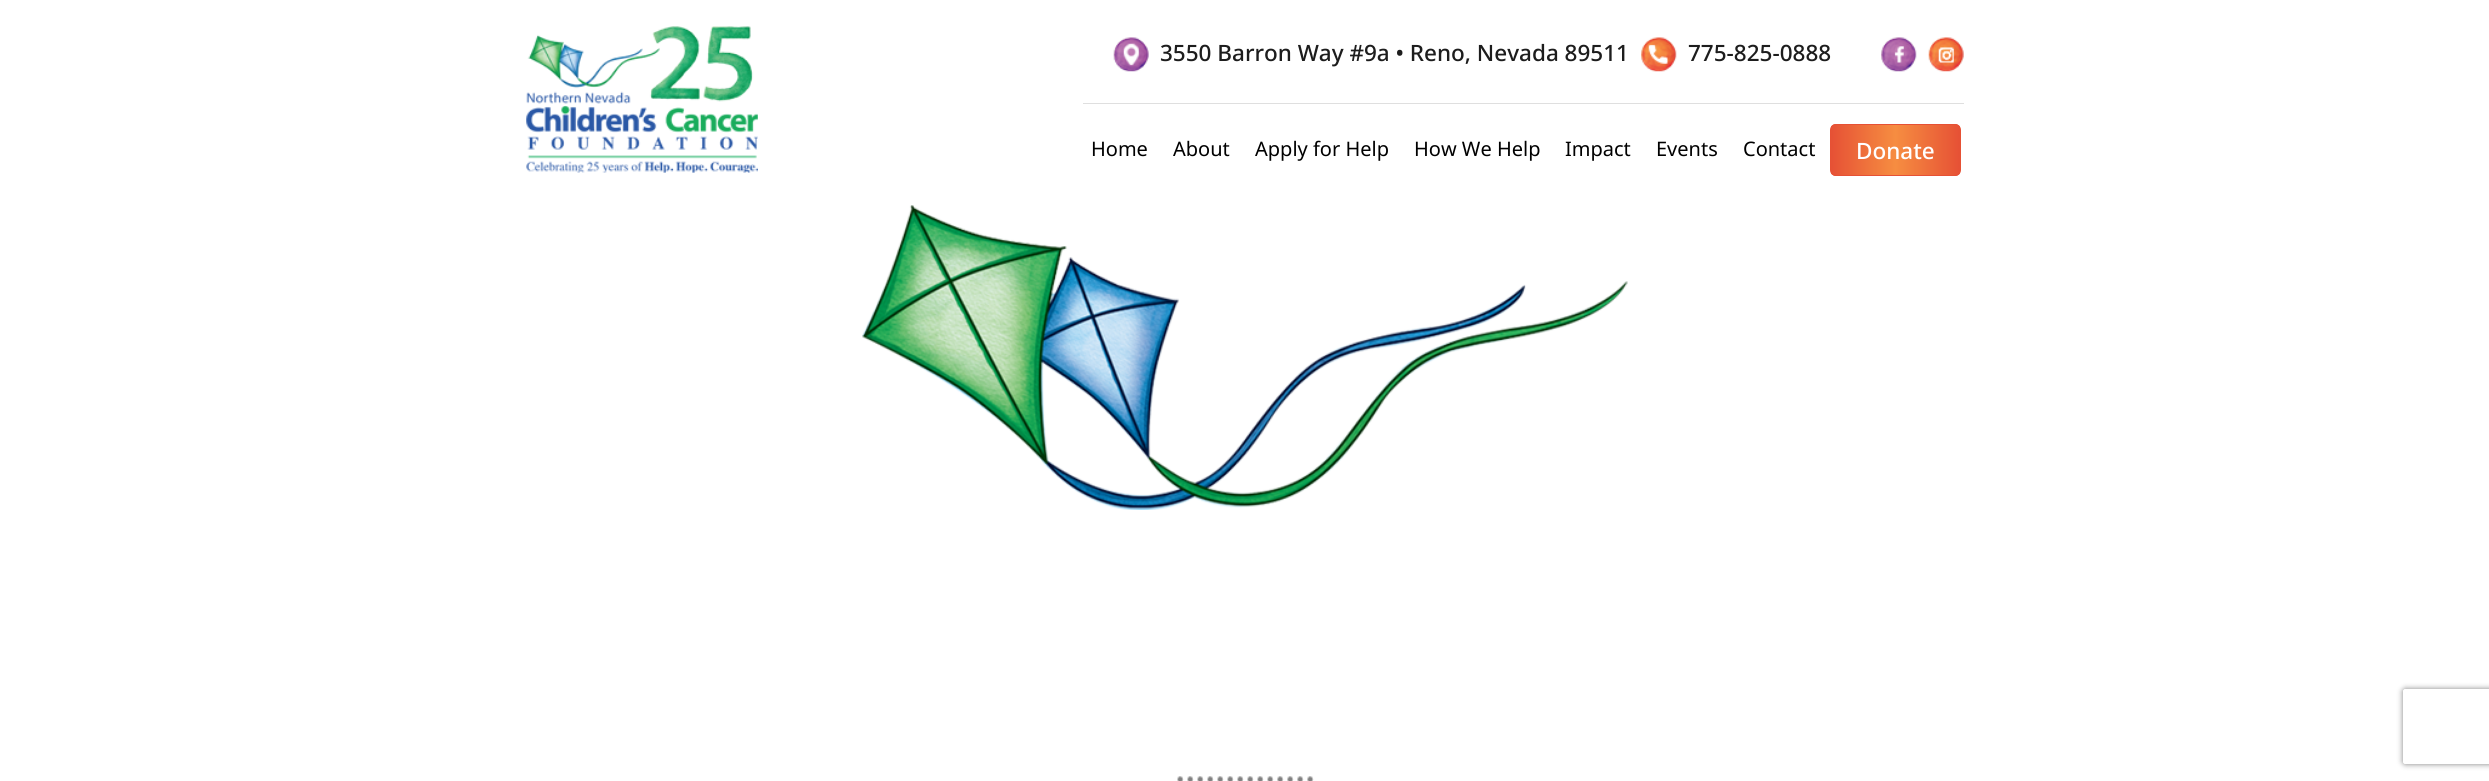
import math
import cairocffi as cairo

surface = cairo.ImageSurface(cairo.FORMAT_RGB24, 2489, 781)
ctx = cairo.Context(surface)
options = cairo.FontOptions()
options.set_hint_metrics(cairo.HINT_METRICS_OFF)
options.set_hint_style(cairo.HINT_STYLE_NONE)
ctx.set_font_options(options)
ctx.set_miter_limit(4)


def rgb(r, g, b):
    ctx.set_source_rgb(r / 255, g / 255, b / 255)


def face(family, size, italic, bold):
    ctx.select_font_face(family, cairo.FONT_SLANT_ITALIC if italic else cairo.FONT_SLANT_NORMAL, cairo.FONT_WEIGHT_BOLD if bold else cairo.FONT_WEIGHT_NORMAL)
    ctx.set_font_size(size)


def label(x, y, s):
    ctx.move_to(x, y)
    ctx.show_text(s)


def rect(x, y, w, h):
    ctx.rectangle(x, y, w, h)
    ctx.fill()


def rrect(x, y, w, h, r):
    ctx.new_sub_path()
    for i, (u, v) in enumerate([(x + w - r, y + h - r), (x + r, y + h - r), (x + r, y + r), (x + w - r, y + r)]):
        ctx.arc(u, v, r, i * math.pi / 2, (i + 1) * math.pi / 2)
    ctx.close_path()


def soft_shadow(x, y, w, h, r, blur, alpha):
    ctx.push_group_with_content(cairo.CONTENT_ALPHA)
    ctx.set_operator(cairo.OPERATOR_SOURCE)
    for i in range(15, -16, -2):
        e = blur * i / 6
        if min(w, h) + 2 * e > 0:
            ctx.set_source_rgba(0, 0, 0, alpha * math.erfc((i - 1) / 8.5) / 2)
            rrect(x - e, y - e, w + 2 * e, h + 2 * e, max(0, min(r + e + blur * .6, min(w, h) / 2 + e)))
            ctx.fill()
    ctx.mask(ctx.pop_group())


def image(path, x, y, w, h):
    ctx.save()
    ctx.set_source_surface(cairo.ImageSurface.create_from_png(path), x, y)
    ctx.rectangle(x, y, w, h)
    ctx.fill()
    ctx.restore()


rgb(255, 255, 255)
ctx.paint()
image('image0.png', 526, 26, 232, 147)
image('image1.png', 1113, 37, 36, 35)
face('Noto Sans Medium', 22.5, 0, 0)
rgb(29, 29, 29)
label(1160, 61, '3550 Barron Way #9a • Reno, Nevada 89511')
image('image2.png', 1641, 37, 36, 35)
label(1688, 61, '775-825-0888')
image('image3.png', 1881, 37, 36, 35)
image('image4.png', 1928, 37, 36, 35)
rgb(223, 223, 223)
rect(1083, 103, 881, 1)
face('Noto Sans', 20, 0, 0)
rgb(0, 0, 0)
label(1091, 156, 'Home')
label(1173, 156, 'About')
label(1255, 156, 'Apply for Help')
label(1414, 156, 'How We Help')
label(1565, 156, 'Impact')
label(1656, 156, 'Events')
label(1743, 156, 'Contact')
ctx.save()
rrect(1830, 124, 131, 52, 6)
ctx.clip()
gradient = cairo.LinearGradient(1831, 150, 1960, 150)
gradient.add_color_stop_rgba(0, 0.902, 0.318, 0.208, 1)
gradient.add_color_stop_rgba(0.5, 0.965, 0.553, 0.255, 1)
gradient.add_color_stop_rgba(1, 0.902, 0.318, 0.208, 1)
ctx.set_source(gradient)
rect(1831, 124, 129, 52)
ctx.restore()
rrect(1830.5, 124.5, 130, 51, 5.5)
rgb(230, 81, 53)
ctx.set_line_width(1)
ctx.stroke()
face('Noto Sans Medium', 22.5, 0, 0)
rgb(255, 255, 255)
label(1856, 159, 'Donate')
image('image5.png', 862, 205, 766, 305)
ctx.save()
ctx.set_fill_rule(cairo.FILL_RULE_EVEN_ODD)
ctx.new_path()
ctx.move_to(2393, 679)
ctx.line_to(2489, 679)
ctx.line_to(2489, 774)
ctx.line_to(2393, 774)
ctx.close_path()
ctx.move_to(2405.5, 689)
ctx.line_to(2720.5, 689)
ctx.curve_to(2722, 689, 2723, 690, 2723, 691.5)
ctx.line_to(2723, 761.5)
ctx.curve_to(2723, 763, 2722, 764, 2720.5, 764)
ctx.line_to(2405.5, 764)
ctx.curve_to(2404, 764, 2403, 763, 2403, 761.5)
ctx.line_to(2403, 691.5)
ctx.curve_to(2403, 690, 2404, 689, 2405.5, 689)
ctx.close_path()
ctx.clip()
rgb(128, 128, 128)
soft_shadow(2403, 689, 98, 75, 2.5, 3, 1)
ctx.restore()
image('image6.png', 1177, 776, 137, 5)
surface.write_to_png('render.png')
